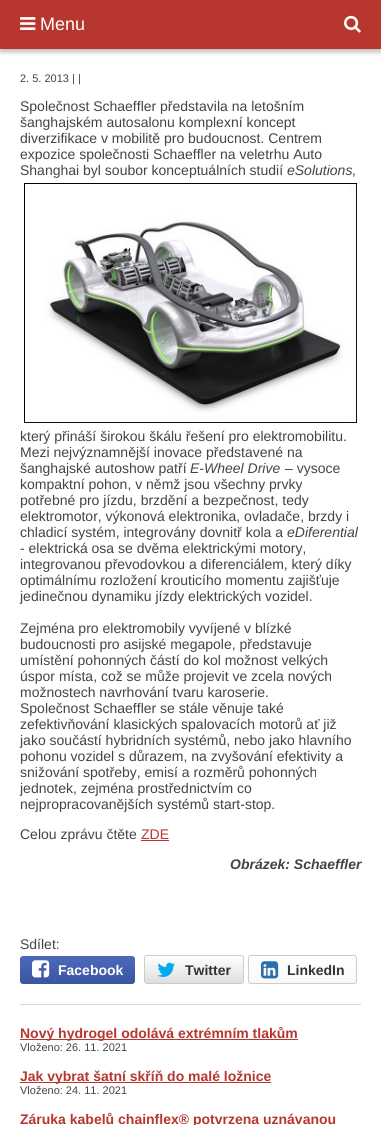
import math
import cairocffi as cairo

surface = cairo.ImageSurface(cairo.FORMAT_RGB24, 381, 1125)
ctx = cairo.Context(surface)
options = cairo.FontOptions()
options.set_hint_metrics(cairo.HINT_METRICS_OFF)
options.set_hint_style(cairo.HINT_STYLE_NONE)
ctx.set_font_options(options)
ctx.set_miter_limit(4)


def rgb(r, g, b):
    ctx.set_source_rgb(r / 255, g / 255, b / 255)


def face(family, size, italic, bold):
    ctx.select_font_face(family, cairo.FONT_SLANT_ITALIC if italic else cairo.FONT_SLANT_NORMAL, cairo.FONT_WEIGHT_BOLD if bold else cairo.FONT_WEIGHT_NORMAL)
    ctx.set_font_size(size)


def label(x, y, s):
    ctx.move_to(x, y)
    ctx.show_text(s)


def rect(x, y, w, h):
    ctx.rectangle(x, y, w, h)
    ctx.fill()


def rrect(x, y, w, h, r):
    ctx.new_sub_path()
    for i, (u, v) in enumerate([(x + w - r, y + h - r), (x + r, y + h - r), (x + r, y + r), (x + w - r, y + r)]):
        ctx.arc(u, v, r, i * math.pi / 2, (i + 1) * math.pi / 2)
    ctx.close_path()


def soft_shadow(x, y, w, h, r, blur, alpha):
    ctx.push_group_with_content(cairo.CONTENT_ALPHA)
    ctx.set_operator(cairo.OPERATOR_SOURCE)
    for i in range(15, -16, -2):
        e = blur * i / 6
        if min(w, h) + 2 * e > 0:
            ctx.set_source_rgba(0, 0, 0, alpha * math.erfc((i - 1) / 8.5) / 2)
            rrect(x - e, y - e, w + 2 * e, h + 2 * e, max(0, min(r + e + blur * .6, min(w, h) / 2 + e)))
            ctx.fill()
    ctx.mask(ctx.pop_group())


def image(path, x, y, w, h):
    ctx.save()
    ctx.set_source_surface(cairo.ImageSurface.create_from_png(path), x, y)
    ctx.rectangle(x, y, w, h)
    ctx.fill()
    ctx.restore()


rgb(255, 255, 255)
ctx.paint()
rgb(187, 187, 187)
soft_shadow(0, 2, 381, 50, 0, 2.5, 1)
rgb(183, 55, 46)
rect(0, 0, 381, 49)
image('image0.png', 20, 17, 16, 13)
face('Liberation Sans', 18, 0, 0)
rgb(255, 255, 255)
label(40, 30, 'Menu')
image('image1.png', 344, 15, 17, 18)
face('Liberation Sans', 11, 0, 0)
rgb(68, 68, 68)
label(20, 82, '2. 5. 2013 | |')
face('Liberation Sans', 14, 0, 0)
label(20, 111, 'Společnost Schaeffler představila na letošním')
label(20, 127, 'šanghajském autosalonu komplexní koncept')
label(20, 143, 'diverzifikace v mobilitě pro budoucnost. Centrem')
label(20, 159, 'expozice společnosti Schaeffler na veletrhu Auto')
label(20, 175, 'Shanghai byl soubor konceptuálních studií')
face('Liberation Sans', 14, 1, 0)
label(287, 175, 'eSolutions')
face('Liberation Sans', 14, 0, 0)
label(352, 175, ',')
image('image2.png', 24, 183, 333, 240)
label(20, 441, 'který přináší širokou škálu řešení pro elektromobilitu.')
label(20, 457, 'Mezi nejvýznamnější inovace představené na')
label(20, 473, 'šanghajské autoshow patří')
face('Liberation Sans', 14, 1, 0)
label(190, 473, 'E-Wheel Drive')
face('Liberation Sans', 14, 0, 0)
label(285, 473, '– vysoce')
label(20, 489, 'kompaktní pohon, v němž jsou všechny prvky')
label(20, 505, 'potřebné pro jízdu, brzdění a bezpečnost, tedy')
label(20, 521, 'elektromotor, výkonová elektronika, ovladače, brzdy i')
label(20, 537, 'chladicí systém, integrovány dovnitř kola a')
face('Liberation Sans', 14, 1, 0)
label(287, 537, 'eDiferential')
face('Liberation Sans', 14, 0, 0)
label(20, 553, '- elektrická osa se dvěma elektrickými motory,')
label(20, 569, 'integrovanou převodovkou a diferenciálem, který díky')
label(20, 585, 'optimálnímu rozložení krouticího momentu zajišťuje')
label(20, 601, 'jedinečnou dynamiku jízdy elektrických vozidel.')
label(20, 633, 'Zejména pro elektromobily vyvíjené v blízké')
label(20, 649, 'budoucnosti pro asijské megapole, představuje')
label(20, 665, 'umístění pohonných částí do kol možnost velkých')
label(20, 681, 'úspor místa, což se může projevit ve zcela nových')
label(20, 697, 'možnostech navrhování tvaru karoserie.')
label(20, 713, 'Společnost Schaeffler se stále věnuje také')
label(20, 729, 'zefektivňování klasických spalovacích motorů ať již')
label(20, 745, 'jako součástí hybridních systémů, nebo jako hlavního')
label(20, 761, 'pohonu vozidel s důrazem, na zvyšování efektivity a')
label(20, 777, 'snižování spotřeby, emisí a rozměrů pohonných')
label(20, 793, 'jednotek, zejména prostřednictvím co')
label(20, 809, 'nejpropracovanějších systémů start-stop.')
label(20, 839, 'Celou zprávu čtěte')
rgb(183, 55, 46)
label(141, 839, 'ZDE')
rect(141, 840, 28, 1)
face('Liberation Sans', 14, 1, 1)
rgb(68, 68, 68)
label(230, 869, 'Obrázek: Schaeffler')
face('Liberation Sans', 14, 0, 0)
label(20, 949, 'Sdílet:')
gradient = cairo.LinearGradient(78, 956, 78, 984)
gradient.add_color_stop_rgba(0, 0.298, 0.412, 0.729, 1)
gradient.add_color_stop_rgba(1, 0.231, 0.333, 0.627, 1)
ctx.set_source(gradient)
rrect(20, 956, 115, 28, 3)
ctx.fill()
image('image3.png', 32, 960, 18, 18)
face('Liberation Sans', 14, 0, 1)
rgb(255, 255, 255)
label(58, 975, 'Facebook')
gradient = cairo.LinearGradient(194, 956, 194, 983)
gradient.add_color_stop_rgba(0, 1, 1, 1, 1)
gradient.add_color_stop_rgba(1, 0.871, 0.871, 0.871, 1)
ctx.set_source(gradient)
rrect(145, 956, 98, 27, 2)
ctx.fill()
rrect(144.5, 955.5, 99, 28, 2.5)
rgb(204, 204, 204)
ctx.set_line_width(1)
ctx.stroke()
image('image4.png', 157, 962, 18, 15)
rgb(51, 51, 51)
label(185, 975, 'Twitter')
gradient = cairo.LinearGradient(303, 956, 303, 983)
gradient.add_color_stop_rgba(0, 1, 1, 1, 1)
gradient.add_color_stop_rgba(1, 0.976, 0.973, 0.973, 1)
ctx.set_source(gradient)
rrect(249, 956, 107, 27, 2)
ctx.fill()
rrect(248.5, 955.5, 108, 28, 2.5)
rgb(204, 204, 204)
ctx.stroke()
image('image5.png', 261, 961, 18, 18)
rgb(51, 51, 51)
label(287, 975, 'LinkedIn')
rgb(216, 216, 216)
rect(20, 1004, 341, 1)
rgb(183, 55, 46)
rect(20, 1039, 278, 1)
label(20, 1038, 'Nový hydrogel odolává extrémním tlakům')
face('Liberation Sans', 11, 0, 0)
rgb(68, 68, 68)
label(20, 1051, 'Vloženo: 26. 11. 2021')
rgb(183, 55, 46)
rect(20, 1082, 251, 1)
face('Liberation Sans', 14, 0, 1)
label(20, 1081, 'Jak vybrat šatní skříň do malé ložnice')
face('Liberation Sans', 11, 0, 0)
rgb(68, 68, 68)
label(20, 1094, 'Vloženo: 24. 11. 2021')
face('Liberation Sans', 14, 0, 1)
rgb(183, 55, 46)
label(20, 1124, 'Záruka kabelů chainflex® potvrzena uznávanou')
surface.write_to_png('render.png')
